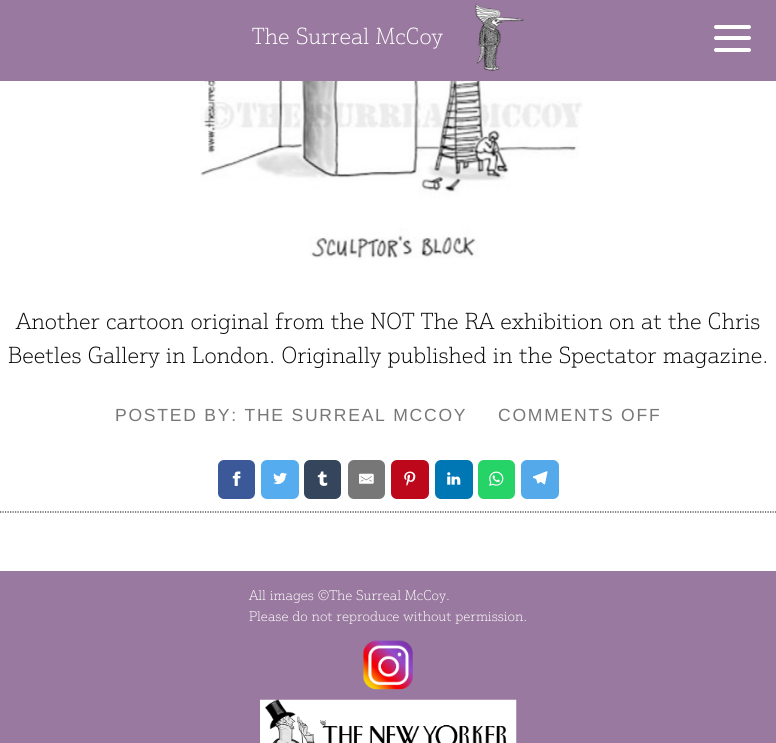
import math
import cairocffi as cairo

surface = cairo.ImageSurface(cairo.FORMAT_RGB24, 776, 743)
ctx = cairo.Context(surface)
options = cairo.FontOptions()
options.set_hint_metrics(cairo.HINT_METRICS_OFF)
options.set_hint_style(cairo.HINT_STYLE_NONE)
ctx.set_font_options(options)
ctx.set_miter_limit(4)


def rgb(r, g, b):
    ctx.set_source_rgb(r / 255, g / 255, b / 255)


def face(family, size, italic, bold):
    ctx.select_font_face(family, cairo.FONT_SLANT_ITALIC if italic else cairo.FONT_SLANT_NORMAL, cairo.FONT_WEIGHT_BOLD if bold else cairo.FONT_WEIGHT_NORMAL)
    ctx.set_font_size(size)


def label(x, y, s):
    ctx.move_to(x, y)
    ctx.show_text(s)


def tracked(x, y, s, letter, word):
    ctx.move_to(x, y)
    for ch in s:
        ctx.show_text(ch)
        ctx.rel_move_to(letter + word * (ch == ' '), 0)


def rect(x, y, w, h):
    ctx.rectangle(x, y, w, h)
    ctx.fill()


def rrect(x, y, w, h, r):
    ctx.new_sub_path()
    for i, (u, v) in enumerate([(x + w - r, y + h - r), (x + r, y + h - r), (x + r, y + r), (x + w - r, y + r)]):
        ctx.arc(u, v, r, i * math.pi / 2, (i + 1) * math.pi / 2)
    ctx.close_path()


def image(path, x, y, w, h):
    ctx.save()
    ctx.set_source_surface(cairo.ImageSurface.create_from_png(path), x, y)
    ctx.rectangle(x, y, w, h)
    ctx.fill()
    ctx.restore()


rgb(255, 255, 255)
ctx.paint()
rgb(153, 121, 159)
rect(0, 0, 776, 81)
face('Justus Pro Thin', 22.5, 0, 0)
rgb(255, 255, 255)
label(252, 44, 'The Surreal McCoy')
image('image0.png', 474, 3, 50, 68)
rrect(714, 25, 37, 4, 2)
ctx.fill()
rrect(714, 36, 37, 4, 2)
ctx.fill()
rrect(714, 48, 37, 4, 2)
ctx.fill()
ctx.new_path()
ctx.move_to(0, 512)
ctx.line_to(776, 512)
rgb(51, 51, 51)
ctx.set_line_width(1.2)
ctx.set_dash([1.25, 1.25])
ctx.stroke()
image('image1.png', 200, 81, 383, 179)
rgb(8, 8, 8)
label(16, 329, 'Another cartoon original from the NOT The RA exhibition on at the Chris')
label(8, 363, 'Beetles Gallery in London. Originally published in the Spectator magazine.')
face('Liberation Sans', 17.55, 0, 0)
rgb(119, 119, 119)
tracked(115, 421, 'POSTED BY: THE SURREAL MCCOY', 1.75, 0)
tracked(498, 421, 'COMMENTS OFF', 1.75, 0)
rgb(59, 89, 152)
rrect(218, 460, 37, 39, 6)
ctx.fill()
image('image2.png', 232, 471, 9, 15)
rgb(85, 172, 238)
rrect(261, 460, 38, 39, 6)
ctx.fill()
image('image3.png', 273, 472, 14, 13)
rgb(53, 70, 92)
rrect(304, 460, 37, 39, 6)
ctx.fill()
image('image4.png', 317, 471, 11, 15)
rgb(119, 119, 119)
rrect(348, 460, 37, 39, 6)
ctx.fill()
image('image5.png', 359, 473, 15, 11)
rgb(189, 8, 28)
rrect(391, 460, 38, 39, 6)
ctx.fill()
image('image6.png', 404, 471, 12, 15)
rgb(0, 119, 181)
rrect(435, 460, 38, 39, 6)
ctx.fill()
image('image7.png', 447, 472, 14, 13)
rgb(37, 211, 102)
rrect(478, 460, 37, 39, 6)
ctx.fill()
image('image8.png', 489, 471, 15, 15)
rgb(84, 169, 235)
rrect(521, 460, 38, 39, 6)
ctx.fill()
image('image9.png', 533, 471, 15, 14)
rgb(153, 121, 159)
rect(0, 571, 776, 172)
face('Justus Pro Thin', 13.75, 0, 0)
rgb(255, 255, 255)
label(249, 600, 'All images ©The Surreal McCoy.')
label(249, 621, 'Please do not reproduce without permission.')
image('image10.png', 363, 640, 50, 50)
image('image11.png', 260, 699, 257, 44)
surface.write_to_png('render.png')
